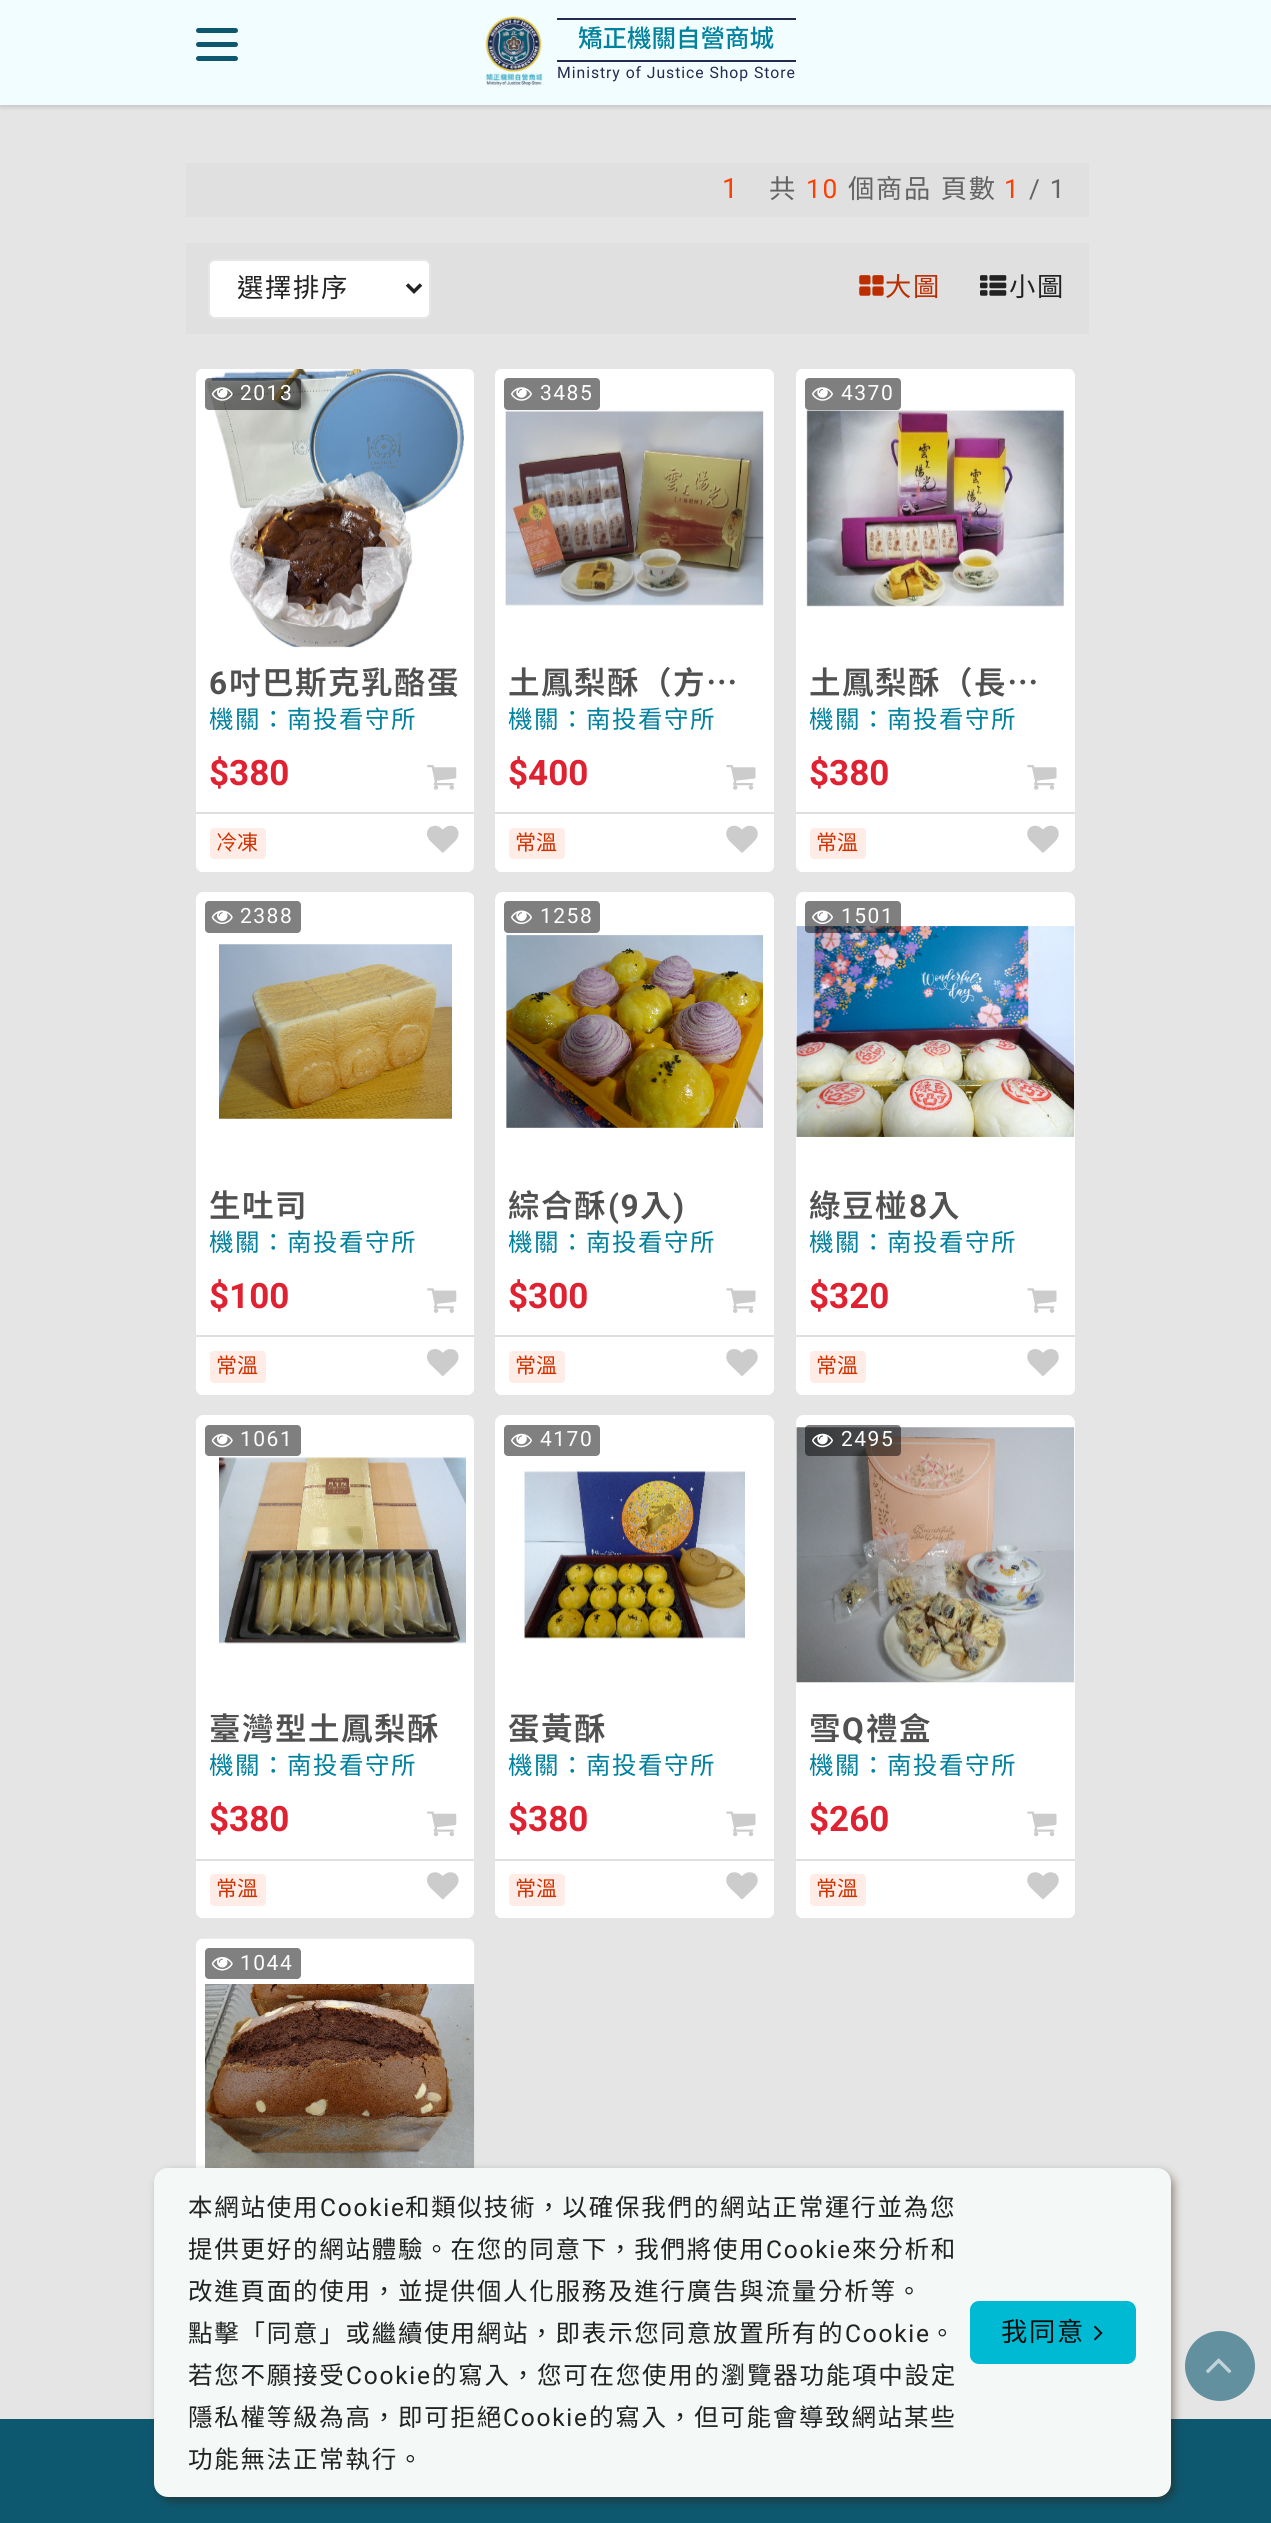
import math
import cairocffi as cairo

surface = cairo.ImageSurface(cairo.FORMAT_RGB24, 1271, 2523)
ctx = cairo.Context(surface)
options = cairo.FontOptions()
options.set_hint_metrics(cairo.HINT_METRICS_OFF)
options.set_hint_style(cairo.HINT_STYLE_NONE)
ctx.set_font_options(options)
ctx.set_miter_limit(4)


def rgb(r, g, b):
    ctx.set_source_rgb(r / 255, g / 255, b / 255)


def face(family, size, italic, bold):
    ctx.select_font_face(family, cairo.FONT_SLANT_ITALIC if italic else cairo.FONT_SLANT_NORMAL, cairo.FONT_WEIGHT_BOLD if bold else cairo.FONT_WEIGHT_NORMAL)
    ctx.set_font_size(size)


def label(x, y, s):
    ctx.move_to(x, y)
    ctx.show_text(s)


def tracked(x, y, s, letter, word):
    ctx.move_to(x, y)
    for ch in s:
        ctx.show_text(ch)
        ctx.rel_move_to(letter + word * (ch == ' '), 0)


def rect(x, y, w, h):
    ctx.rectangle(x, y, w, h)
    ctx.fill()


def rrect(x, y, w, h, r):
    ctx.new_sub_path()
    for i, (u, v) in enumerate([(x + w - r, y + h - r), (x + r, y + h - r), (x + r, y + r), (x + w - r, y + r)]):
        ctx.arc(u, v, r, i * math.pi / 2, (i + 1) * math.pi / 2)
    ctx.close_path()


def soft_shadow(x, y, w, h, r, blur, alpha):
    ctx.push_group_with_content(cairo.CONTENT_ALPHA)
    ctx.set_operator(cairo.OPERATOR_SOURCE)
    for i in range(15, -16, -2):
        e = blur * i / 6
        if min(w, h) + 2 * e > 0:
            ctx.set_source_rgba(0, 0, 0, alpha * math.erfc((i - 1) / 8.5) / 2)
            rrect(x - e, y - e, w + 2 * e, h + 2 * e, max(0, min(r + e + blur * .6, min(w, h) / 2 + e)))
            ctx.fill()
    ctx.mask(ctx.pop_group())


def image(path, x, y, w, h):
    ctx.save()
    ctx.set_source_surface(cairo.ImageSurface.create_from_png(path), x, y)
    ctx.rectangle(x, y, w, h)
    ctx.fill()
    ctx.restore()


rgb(229, 229, 229)
ctx.paint()
rgb(0, 0, 0)
soft_shadow(0, 2, 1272, 105, 0, 2.5, 0.15)
rgb(242, 253, 255)
rect(0, 0, 1271, 105)
rgb(13, 88, 111)
rrect(196, 28, 42, 5, 2.5)
ctx.fill()
rrect(196, 42, 42, 5, 2.5)
ctx.fill()
rrect(196, 56, 42, 5, 2.5)
ctx.fill()
image('image0.png', 485, 16, 58, 70)
rgb(34, 44, 81)
rect(557, 18, 239, 2)
rect(557, 60, 239, 2)
face('Noto Sans TC Medium', 24.5, 0, 0)
rgb(0, 129, 157)
label(578, 47, '矯正機關自營商城')
face('Roboto', 15.75, 0, 0)
rgb(34, 44, 81)
tracked(557, 78, 'Ministry of Justice Shop Store', 0.95, 0)
rgb(224, 224, 224)
rect(186, 163, 903, 54)
face('Roboto', 28, 0, 0)
rgb(255, 62, 1)
tracked(722, 198, '1', 1.75, 0)
face('Noto Sans TC', 26.25, 0, 0)
rgb(99, 99, 99)
tracked(769, 198, '共', 1.75, 0)
face('Roboto', 26.25, 0, 0)
rgb(255, 62, 1)
tracked(806, 198, '10', 1.75, 0)
face('Noto Sans TC', 26.25, 0, 0)
rgb(99, 99, 99)
tracked(848, 198, '個商品 頁數', 1.75, 1)
face('Roboto', 26.25, 0, 0)
rgb(255, 62, 1)
tracked(1004, 198, '1', 1.75, 0)
rgb(99, 99, 99)
tracked(1029, 198, '/ 1', 1.75, 0)
rgb(224, 224, 224)
rect(186, 243, 903, 91)
rgb(255, 255, 255)
rrect(209, 260, 221, 58, 6)
ctx.fill_preserve()
rgb(230, 230, 230)
ctx.stroke()
ctx.new_path()
ctx.move_to(407, 284.5)
ctx.line_to(414, 291.5)
ctx.line_to(421, 284.5)
rgb(34, 34, 34)
ctx.set_line_width(3.5)
ctx.stroke()
face('Noto Sans TC', 26.25, 0, 0)
tracked(237, 297, '選擇排序', 1.75, 0)
image('image1.png', 859, 275, 25, 21)
rgb(188, 45, 0)
tracked(885, 296, '大圖', 1.75, 0)
image('image2.png', 980, 275, 27, 21)
rgb(34, 34, 34)
tracked(1009, 296, '小圖', 1.75, 0)
rgb(255, 255, 255)
ctx.new_path()
ctx.move_to(203, 369)
ctx.line_to(467, 369)
ctx.curve_to(471, 369, 474, 372, 474, 376)
ctx.line_to(474, 648)
ctx.line_to(196, 648)
ctx.line_to(196, 376)
ctx.curve_to(196, 372, 199, 369, 203, 369)
ctx.close_path()
ctx.fill()
image('image3.png', 196, 369, 278, 279)
ctx.set_source_rgba(0, 0, 0, 0.5)
rrect(205, 378, 96, 32, 4)
ctx.fill()
image('image4.png', 211, 387, 22, 14)
face('Roboto', 21, 0, 0)
rgb(255, 255, 255)
tracked(240, 400, '2013', 1.5, 0)
ctx.new_path()
ctx.move_to(196, 648)
ctx.line_to(474, 648)
ctx.line_to(474, 865)
ctx.curve_to(474, 869, 471, 872, 467, 872)
ctx.line_to(203, 872)
ctx.curve_to(199, 872, 196, 869, 196, 865)
ctx.close_path()
ctx.fill()
face('Roboto', 31.5, 0, 1)
rgb(81, 81, 81)
tracked(209, 694, '6', 1.5, 0)
face('Noto Sans TC SemiBold', 31.5, 0, 0)
tracked(229, 694, '吋巴斯克乳酪蛋', 1.5, 0)
face('Noto Sans TC', 24.5, 0, 0)
rgb(0, 129, 157)
tracked(209, 728, '機關：南投看守所', 1.5, 0)
face('Roboto', 35, 0, 1)
rgb(223, 34, 49)
label(209, 785, '$380')
image('image5.png', 427, 765, 30, 25)
rgb(255, 255, 255)
ctx.new_path()
ctx.move_to(196, 812)
ctx.line_to(474, 812)
ctx.line_to(474, 865)
ctx.curve_to(474, 869, 471, 872, 467, 872)
ctx.line_to(203, 872)
ctx.curve_to(199, 872, 196, 869, 196, 865)
ctx.close_path()
ctx.fill()
rgb(223, 223, 223)
rect(196, 812, 278, 2)
rgb(255, 236, 230)
rrect(210, 828, 56, 31, 4)
ctx.fill()
face('Noto Sans TC', 21, 0, 0)
rgb(206, 50, 0)
label(216, 850, '冷凍')
image('image6.png', 427, 825, 32, 28)
rgb(255, 255, 255)
ctx.new_path()
ctx.move_to(502, 369)
ctx.line_to(767, 369)
ctx.curve_to(771, 369, 774, 372, 774, 376)
ctx.line_to(774, 648)
ctx.line_to(495, 648)
ctx.line_to(495, 376)
ctx.curve_to(495, 372, 498, 369, 502, 369)
ctx.close_path()
ctx.fill()
image('image7.png', 496, 369, 276, 237)
rgb(127, 127, 127)
rrect(504, 378, 96, 32, 4)
ctx.fill()
image('image8.png', 511, 387, 21, 14)
face('Roboto', 21, 0, 0)
rgb(255, 255, 255)
tracked(540, 400, '3485', 1.5, 0)
ctx.new_path()
ctx.move_to(495, 648)
ctx.line_to(774, 648)
ctx.line_to(774, 865)
ctx.curve_to(774, 869, 771, 872, 767, 872)
ctx.line_to(502, 872)
ctx.curve_to(498, 872, 495, 869, 495, 865)
ctx.close_path()
ctx.fill()
face('Noto Sans TC SemiBold', 31.5, 0, 0)
rgb(81, 81, 81)
tracked(508, 694, '土鳳梨酥（方…', 1.5, 0)
face('Noto Sans TC', 24.5, 0, 0)
rgb(0, 129, 157)
tracked(508, 728, '機關：南投看守所', 1.5, 0)
face('Roboto', 35, 0, 1)
rgb(223, 34, 49)
label(508, 785, '$400')
image('image9.png', 726, 765, 30, 25)
rgb(255, 255, 255)
ctx.new_path()
ctx.move_to(495, 812)
ctx.line_to(774, 812)
ctx.line_to(774, 865)
ctx.curve_to(774, 869, 771, 872, 767, 872)
ctx.line_to(502, 872)
ctx.curve_to(498, 872, 495, 869, 495, 865)
ctx.close_path()
ctx.fill()
rgb(223, 223, 223)
rect(495, 812, 279, 2)
rgb(255, 236, 230)
rrect(509, 828, 56, 31, 4)
ctx.fill()
face('Noto Sans TC', 21, 0, 0)
rgb(206, 50, 0)
label(515, 850, '常溫')
image('image10.png', 726, 825, 32, 28)
rgb(255, 255, 255)
ctx.new_path()
ctx.move_to(803, 369)
ctx.line_to(1068, 369)
ctx.curve_to(1072, 369, 1075, 372, 1075, 376)
ctx.line_to(1075, 648)
ctx.line_to(796, 648)
ctx.line_to(796, 376)
ctx.curve_to(796, 372, 799, 369, 803, 369)
ctx.close_path()
ctx.fill()
image('image11.png', 797, 369, 276, 238)
ctx.set_source_rgba(0, 0, 0, 0.5)
rrect(805, 378, 96, 32, 4)
ctx.fill()
image('image12.png', 812, 387, 21, 14)
face('Roboto', 21, 0, 0)
rgb(255, 255, 255)
tracked(841, 400, '4370', 1.5, 0)
ctx.new_path()
ctx.move_to(796, 648)
ctx.line_to(1075, 648)
ctx.line_to(1075, 865)
ctx.curve_to(1075, 869, 1072, 872, 1068, 872)
ctx.line_to(803, 872)
ctx.curve_to(799, 872, 796, 869, 796, 865)
ctx.close_path()
ctx.fill()
face('Noto Sans TC SemiBold', 31.5, 0, 0)
rgb(81, 81, 81)
tracked(809, 694, '土鳳梨酥（長…', 1.5, 0)
face('Noto Sans TC', 24.5, 0, 0)
rgb(0, 129, 157)
tracked(809, 728, '機關：南投看守所', 1.5, 0)
face('Roboto', 35, 0, 1)
rgb(223, 34, 49)
label(809, 785, '$380')
image('image9.png', 1027, 765, 30, 25)
rgb(255, 255, 255)
ctx.new_path()
ctx.move_to(796, 812)
ctx.line_to(1075, 812)
ctx.line_to(1075, 865)
ctx.curve_to(1075, 869, 1072, 872, 1068, 872)
ctx.line_to(803, 872)
ctx.curve_to(799, 872, 796, 869, 796, 865)
ctx.close_path()
ctx.fill()
rgb(223, 223, 223)
rect(796, 812, 279, 2)
rgb(255, 236, 230)
rrect(810, 828, 56, 31, 4)
ctx.fill()
face('Noto Sans TC', 21, 0, 0)
rgb(206, 50, 0)
label(816, 850, '常溫')
image('image10.png', 1027, 825, 32, 28)
rgb(255, 255, 255)
ctx.new_path()
ctx.move_to(203, 893)
ctx.line_to(467, 893)
ctx.curve_to(471, 893, 474, 896, 474, 900)
ctx.line_to(474, 1171)
ctx.line_to(196, 1171)
ctx.line_to(196, 900)
ctx.curve_to(196, 896, 199, 893, 203, 893)
ctx.close_path()
ctx.fill()
image('image13.png', 196, 892, 278, 227)
rgb(128, 128, 128)
rrect(205, 901, 96, 32, 4)
ctx.fill()
image('image14.png', 211, 910, 22, 14)
face('Roboto', 21, 0, 0)
rgb(255, 255, 255)
tracked(240, 923, '2388', 1.5, 0)
ctx.new_path()
ctx.move_to(196, 1171)
ctx.line_to(474, 1171)
ctx.line_to(474, 1388)
ctx.curve_to(474, 1392, 471, 1395, 467, 1395)
ctx.line_to(203, 1395)
ctx.curve_to(199, 1395, 196, 1392, 196, 1388)
ctx.close_path()
ctx.fill()
face('Noto Sans TC SemiBold', 31.5, 0, 0)
rgb(81, 81, 81)
tracked(209, 1217, '生吐司', 1.5, 0)
face('Noto Sans TC', 24.5, 0, 0)
rgb(0, 129, 157)
tracked(209, 1251, '機關：南投看守所', 1.5, 0)
face('Roboto', 35, 0, 1)
rgb(223, 34, 49)
label(209, 1308, '$100')
image('image15.png', 427, 1288, 30, 25)
rgb(255, 255, 255)
ctx.new_path()
ctx.move_to(196, 1335)
ctx.line_to(474, 1335)
ctx.line_to(474, 1388)
ctx.curve_to(474, 1392, 471, 1395, 467, 1395)
ctx.line_to(203, 1395)
ctx.curve_to(199, 1395, 196, 1392, 196, 1388)
ctx.close_path()
ctx.fill()
rgb(223, 223, 223)
rect(196, 1335, 278, 2)
rgb(255, 236, 230)
rrect(210, 1351, 56, 32, 4)
ctx.fill()
face('Noto Sans TC', 21, 0, 0)
rgb(206, 50, 0)
label(216, 1373, '常溫')
image('image16.png', 427, 1349, 32, 27)
rgb(255, 255, 255)
ctx.new_path()
ctx.move_to(502, 893)
ctx.line_to(767, 893)
ctx.curve_to(771, 893, 774, 896, 774, 900)
ctx.line_to(774, 1171)
ctx.line_to(495, 1171)
ctx.line_to(495, 900)
ctx.curve_to(495, 896, 498, 893, 502, 893)
ctx.close_path()
ctx.fill()
image('image17.png', 496, 892, 277, 236)
rgb(127, 127, 127)
rrect(504, 901, 96, 32, 4)
ctx.fill()
image('image18.png', 511, 910, 21, 14)
face('Roboto', 21, 0, 0)
rgb(255, 255, 255)
tracked(540, 923, '1258', 1.5, 0)
ctx.new_path()
ctx.move_to(495, 1171)
ctx.line_to(774, 1171)
ctx.line_to(774, 1388)
ctx.curve_to(774, 1392, 771, 1395, 767, 1395)
ctx.line_to(502, 1395)
ctx.curve_to(498, 1395, 495, 1392, 495, 1388)
ctx.close_path()
ctx.fill()
face('Noto Sans TC SemiBold', 31.5, 0, 0)
rgb(81, 81, 81)
tracked(508, 1217, '綜合酥', 1.5, 0)
face('Roboto', 31.5, 0, 1)
tracked(608, 1217, '(9', 1.5, 0)
face('Noto Sans TC SemiBold', 31.5, 0, 0)
tracked(640, 1217, '入', 1.5, 0)
face('Roboto', 31.5, 0, 1)
tracked(673, 1217, ')', 1.5, 0)
face('Noto Sans TC', 24.5, 0, 0)
rgb(0, 129, 157)
tracked(508, 1251, '機關：南投看守所', 1.5, 0)
face('Roboto', 35, 0, 1)
rgb(223, 34, 49)
label(508, 1308, '$300')
image('image19.png', 726, 1288, 30, 25)
rgb(255, 255, 255)
ctx.new_path()
ctx.move_to(495, 1335)
ctx.line_to(774, 1335)
ctx.line_to(774, 1388)
ctx.curve_to(774, 1392, 771, 1395, 767, 1395)
ctx.line_to(502, 1395)
ctx.curve_to(498, 1395, 495, 1392, 495, 1388)
ctx.close_path()
ctx.fill()
rgb(223, 223, 223)
rect(495, 1335, 279, 2)
rgb(255, 236, 230)
rrect(509, 1351, 56, 32, 4)
ctx.fill()
face('Noto Sans TC', 21, 0, 0)
rgb(206, 50, 0)
label(515, 1373, '常溫')
image('image20.png', 726, 1349, 32, 27)
rgb(255, 255, 255)
ctx.new_path()
ctx.move_to(803, 893)
ctx.line_to(1068, 893)
ctx.curve_to(1072, 893, 1075, 896, 1075, 900)
ctx.line_to(1075, 1171)
ctx.line_to(796, 1171)
ctx.line_to(796, 900)
ctx.curve_to(796, 896, 799, 893, 803, 893)
ctx.close_path()
ctx.fill()
image('image21.png', 796, 892, 279, 245)
ctx.set_source_rgba(0, 0, 0, 0.5)
rrect(805, 901, 96, 32, 4)
ctx.fill()
image('image22.png', 812, 910, 21, 14)
face('Roboto', 21, 0, 0)
rgb(255, 255, 255)
tracked(841, 923, '1501', 1.5, 0)
ctx.new_path()
ctx.move_to(796, 1171)
ctx.line_to(1075, 1171)
ctx.line_to(1075, 1388)
ctx.curve_to(1075, 1392, 1072, 1395, 1068, 1395)
ctx.line_to(803, 1395)
ctx.curve_to(799, 1395, 796, 1392, 796, 1388)
ctx.close_path()
ctx.fill()
face('Noto Sans TC SemiBold', 31.5, 0, 0)
rgb(81, 81, 81)
tracked(809, 1217, '綠豆椪', 1.5, 0)
face('Roboto', 31.5, 0, 1)
tracked(909, 1217, '8', 1.5, 0)
face('Noto Sans TC SemiBold', 31.5, 0, 0)
tracked(928, 1217, '入', 1.5, 0)
face('Noto Sans TC', 24.5, 0, 0)
rgb(0, 129, 157)
tracked(809, 1251, '機關：南投看守所', 1.5, 0)
face('Roboto', 35, 0, 1)
rgb(223, 34, 49)
label(809, 1308, '$320')
image('image19.png', 1027, 1288, 30, 25)
rgb(255, 255, 255)
ctx.new_path()
ctx.move_to(796, 1335)
ctx.line_to(1075, 1335)
ctx.line_to(1075, 1388)
ctx.curve_to(1075, 1392, 1072, 1395, 1068, 1395)
ctx.line_to(803, 1395)
ctx.curve_to(799, 1395, 796, 1392, 796, 1388)
ctx.close_path()
ctx.fill()
rgb(223, 223, 223)
rect(796, 1335, 279, 2)
rgb(255, 236, 230)
rrect(810, 1351, 56, 32, 4)
ctx.fill()
face('Noto Sans TC', 21, 0, 0)
rgb(206, 50, 0)
label(816, 1373, '常溫')
image('image20.png', 1027, 1349, 32, 27)
rgb(255, 255, 255)
ctx.new_path()
ctx.move_to(203, 1416)
ctx.line_to(467, 1416)
ctx.curve_to(471, 1416, 474, 1419, 474, 1423)
ctx.line_to(474, 1694)
ctx.line_to(196, 1694)
ctx.line_to(196, 1423)
ctx.curve_to(196, 1419, 199, 1416, 203, 1416)
ctx.close_path()
ctx.fill()
image('image23.png', 196, 1415, 278, 229)
rgb(127, 127, 127)
rrect(205, 1425, 96, 31, 4)
ctx.fill()
image('image24.png', 211, 1433, 22, 15)
face('Roboto', 21, 0, 0)
rgb(255, 255, 255)
tracked(240, 1446, '1061', 1.5, 0)
ctx.new_path()
ctx.move_to(196, 1694)
ctx.line_to(474, 1694)
ctx.line_to(474, 1911)
ctx.curve_to(474, 1915, 471, 1918, 467, 1918)
ctx.line_to(203, 1918)
ctx.curve_to(199, 1918, 196, 1915, 196, 1911)
ctx.close_path()
ctx.fill()
face('Noto Sans TC SemiBold', 31.5, 0, 0)
rgb(81, 81, 81)
tracked(209, 1740, '臺灣型土鳳梨酥', 1.5, 0)
face('Noto Sans TC', 24.5, 0, 0)
rgb(0, 129, 157)
tracked(209, 1774, '機關：南投看守所', 1.5, 0)
face('Roboto', 35, 0, 1)
rgb(223, 34, 49)
label(209, 1831, '$380')
image('image25.png', 427, 1811, 30, 26)
rgb(255, 255, 255)
ctx.new_path()
ctx.move_to(196, 1859)
ctx.line_to(474, 1859)
ctx.line_to(474, 1911)
ctx.curve_to(474, 1915, 471, 1918, 467, 1918)
ctx.line_to(203, 1918)
ctx.curve_to(199, 1918, 196, 1915, 196, 1911)
ctx.close_path()
ctx.fill()
rgb(223, 223, 223)
rect(196, 1859, 278, 2)
rgb(255, 236, 230)
rrect(210, 1874, 56, 32, 4)
ctx.fill()
face('Noto Sans TC', 21, 0, 0)
rgb(206, 50, 0)
label(216, 1896, '常溫')
image('image26.png', 427, 1872, 32, 28)
rgb(255, 255, 255)
ctx.new_path()
ctx.move_to(502, 1416)
ctx.line_to(767, 1416)
ctx.curve_to(771, 1416, 774, 1419, 774, 1423)
ctx.line_to(774, 1694)
ctx.line_to(495, 1694)
ctx.line_to(495, 1423)
ctx.curve_to(495, 1419, 498, 1416, 502, 1416)
ctx.close_path()
ctx.fill()
image('image27.png', 496, 1415, 277, 224)
rgb(128, 128, 128)
rrect(504, 1425, 96, 31, 4)
ctx.fill()
image('image28.png', 511, 1433, 21, 15)
face('Roboto', 21, 0, 0)
rgb(255, 255, 255)
tracked(540, 1446, '4170', 1.5, 0)
ctx.new_path()
ctx.move_to(495, 1694)
ctx.line_to(774, 1694)
ctx.line_to(774, 1911)
ctx.curve_to(774, 1915, 771, 1918, 767, 1918)
ctx.line_to(502, 1918)
ctx.curve_to(498, 1918, 495, 1915, 495, 1911)
ctx.close_path()
ctx.fill()
face('Noto Sans TC SemiBold', 31.5, 0, 0)
rgb(81, 81, 81)
tracked(508, 1740, '蛋黃酥', 1.5, 0)
face('Noto Sans TC', 24.5, 0, 0)
rgb(0, 129, 157)
tracked(508, 1774, '機關：南投看守所', 1.5, 0)
face('Roboto', 35, 0, 1)
rgb(223, 34, 49)
label(508, 1831, '$380')
image('image29.png', 726, 1811, 30, 26)
rgb(255, 255, 255)
ctx.new_path()
ctx.move_to(495, 1859)
ctx.line_to(774, 1859)
ctx.line_to(774, 1911)
ctx.curve_to(774, 1915, 771, 1918, 767, 1918)
ctx.line_to(502, 1918)
ctx.curve_to(498, 1918, 495, 1915, 495, 1911)
ctx.close_path()
ctx.fill()
rgb(223, 223, 223)
rect(495, 1859, 279, 2)
rgb(255, 236, 230)
rrect(509, 1874, 56, 32, 4)
ctx.fill()
face('Noto Sans TC', 21, 0, 0)
rgb(206, 50, 0)
label(515, 1896, '常溫')
image('image30.png', 726, 1872, 32, 28)
rgb(255, 255, 255)
ctx.new_path()
ctx.move_to(803, 1416)
ctx.line_to(1068, 1416)
ctx.curve_to(1072, 1416, 1075, 1419, 1075, 1423)
ctx.line_to(1075, 1694)
ctx.line_to(796, 1694)
ctx.line_to(796, 1423)
ctx.curve_to(796, 1419, 799, 1416, 803, 1416)
ctx.close_path()
ctx.fill()
image('image31.png', 796, 1415, 279, 268)
ctx.set_source_rgba(0, 0, 0, 0.5)
rrect(805, 1425, 96, 31, 4)
ctx.fill()
image('image32.png', 812, 1433, 21, 15)
face('Roboto', 21, 0, 0)
rgb(255, 255, 255)
tracked(841, 1446, '2495', 1.5, 0)
ctx.new_path()
ctx.move_to(796, 1694)
ctx.line_to(1075, 1694)
ctx.line_to(1075, 1911)
ctx.curve_to(1075, 1915, 1072, 1918, 1068, 1918)
ctx.line_to(803, 1918)
ctx.curve_to(799, 1918, 796, 1915, 796, 1911)
ctx.close_path()
ctx.fill()
face('Noto Sans TC SemiBold', 31.5, 0, 0)
rgb(81, 81, 81)
tracked(809, 1740, '雪', 1.5, 0)
face('Roboto', 31.5, 0, 1)
tracked(842, 1740, 'Q', 1.5, 0)
face('Noto Sans TC SemiBold', 31.5, 0, 0)
tracked(866, 1740, '禮盒', 1.5, 0)
face('Noto Sans TC', 24.5, 0, 0)
rgb(0, 129, 157)
tracked(809, 1774, '機關：南投看守所', 1.5, 0)
face('Roboto', 35, 0, 1)
rgb(223, 34, 49)
label(809, 1831, '$260')
image('image29.png', 1027, 1811, 30, 26)
rgb(255, 255, 255)
ctx.new_path()
ctx.move_to(796, 1859)
ctx.line_to(1075, 1859)
ctx.line_to(1075, 1911)
ctx.curve_to(1075, 1915, 1072, 1918, 1068, 1918)
ctx.line_to(803, 1918)
ctx.curve_to(799, 1918, 796, 1915, 796, 1911)
ctx.close_path()
ctx.fill()
rgb(223, 223, 223)
rect(796, 1859, 279, 2)
rgb(255, 236, 230)
rrect(810, 1874, 56, 32, 4)
ctx.fill()
face('Noto Sans TC', 21, 0, 0)
rgb(206, 50, 0)
label(816, 1896, '常溫')
image('image30.png', 1027, 1872, 32, 28)
image('image33.png', 196, 1938, 279, 230)
rgb(128, 128, 128)
rrect(205, 1948, 96, 31, 4)
ctx.fill()
image('image34.png', 211, 1957, 22, 14)
face('Roboto', 21, 0, 0)
rgb(255, 255, 255)
tracked(240, 1970, '1044', 1.5, 0)
rgb(99, 144, 158)
ctx.new_path()
ctx.arc(1220, 2366, 35, 0, 2 * math.pi)
ctx.fill()
rgb(13, 88, 111)
rect(0, 2419, 1271, 104)
rgb(50, 19, 0)
soft_shadow(158, 2172, 1016, 329, 14, 4.5, 0.44)
rgb(244, 249, 247)
rrect(154, 2168, 1017, 329, 14)
ctx.fill()
face('Noto Sans TC', 24.5, 0, 0)
rgb(34, 34, 34)
tracked(188, 2216, '本網站使用', 1.75, 0)
face('Roboto', 24.5, 0, 0)
tracked(320, 2216, 'Cookie', 1.75, 0)
face('Noto Sans TC', 24.5, 0, 0)
tracked(405, 2216, '和類似技術，以確保我們的網站正常運行並為您', 1.75, 0)
tracked(188, 2258, '提供更好的網站體驗。在您的同意下，我們將使用', 1.75, 0)
face('Roboto', 24.5, 0, 0)
tracked(766, 2258, 'Cookie', 1.75, 0)
face('Noto Sans TC', 24.5, 0, 0)
tracked(852, 2258, '來分析和', 1.75, 0)
tracked(188, 2300, '改進頁面的使用，並提供個人化服務及進行廣告與流量分析等。', 1.75, 0)
tracked(188, 2342, '點擊「同意」或繼續使用網站，即表示您同意放置所有的', 1.75, 0)
face('Roboto', 24.5, 0, 0)
tracked(845, 2342, 'Cookie', 1.75, 0)
face('Noto Sans TC', 24.5, 0, 0)
tracked(930, 2342, '。', 1.75, 0)
tracked(188, 2384, '若您不願接受', 1.75, 0)
face('Roboto', 24.5, 0, 0)
tracked(346, 2384, 'Cookie', 1.75, 0)
face('Noto Sans TC', 24.5, 0, 0)
tracked(432, 2384, '的寫入，您可在您使用的瀏覽器功能項中設定', 1.75, 0)
tracked(188, 2426, '隱私權等級為高，即可拒絕', 1.75, 0)
face('Roboto', 24.5, 0, 0)
tracked(503, 2426, 'Cookie', 1.75, 0)
face('Noto Sans TC', 24.5, 0, 0)
tracked(589, 2426, '的寫入，但可能會導致網站某些', 1.75, 0)
tracked(188, 2468, '功能無法正常執行。', 1.75, 0)
rgb(0, 186, 211)
rrect(970, 2301, 166, 63, 9)
ctx.fill()
face('Noto Sans TC', 26.25, 0, 0)
rgb(14, 14, 14)
tracked(1001, 2341, '我同意', 1.75, 0)
image('image35.png', 1094, 2325, 9, 16)
image('image36.png', 1206, 2358, 26, 16)
surface.write_to_png('render.png')
